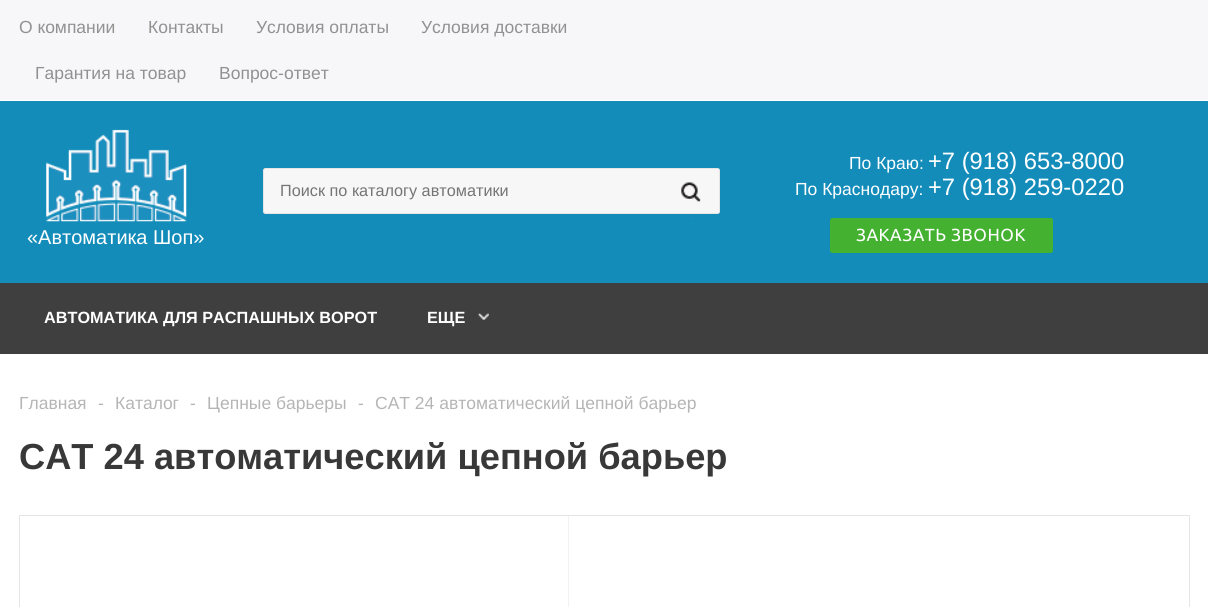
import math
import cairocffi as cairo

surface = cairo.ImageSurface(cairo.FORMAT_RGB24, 1208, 607)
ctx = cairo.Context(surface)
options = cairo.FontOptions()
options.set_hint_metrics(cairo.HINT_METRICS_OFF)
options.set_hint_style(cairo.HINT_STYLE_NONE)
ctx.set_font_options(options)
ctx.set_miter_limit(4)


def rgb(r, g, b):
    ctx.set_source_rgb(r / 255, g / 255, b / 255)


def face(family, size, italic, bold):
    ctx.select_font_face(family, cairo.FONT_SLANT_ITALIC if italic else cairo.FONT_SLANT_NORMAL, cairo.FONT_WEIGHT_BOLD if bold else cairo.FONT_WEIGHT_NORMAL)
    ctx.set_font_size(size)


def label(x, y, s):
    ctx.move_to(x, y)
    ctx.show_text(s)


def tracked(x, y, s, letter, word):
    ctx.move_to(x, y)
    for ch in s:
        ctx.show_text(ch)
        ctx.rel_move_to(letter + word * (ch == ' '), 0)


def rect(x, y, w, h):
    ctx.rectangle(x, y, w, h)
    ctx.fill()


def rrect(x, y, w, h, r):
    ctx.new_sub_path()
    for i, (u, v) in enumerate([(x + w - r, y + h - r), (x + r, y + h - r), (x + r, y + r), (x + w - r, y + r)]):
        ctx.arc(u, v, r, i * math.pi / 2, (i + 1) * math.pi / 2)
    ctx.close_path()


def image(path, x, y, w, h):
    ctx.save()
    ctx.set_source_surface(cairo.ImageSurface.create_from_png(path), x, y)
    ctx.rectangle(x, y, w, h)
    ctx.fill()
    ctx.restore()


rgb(255, 255, 255)
ctx.paint()
rgb(247, 247, 249)
rect(0, 0, 1208, 100)
face('Liberation Sans', 17.5, 0, 0)
rgb(145, 145, 145)
label(19, 33, 'О компании')
label(148, 33, 'Контакты')
label(256, 33, 'Условия оплаты')
label(421, 33, 'Условия доставки')
label(35, 79, 'Гарантия на товар')
label(219, 79, 'Вопрос-ответ')
rgb(19, 140, 186)
rect(0, 101, 1208, 182)
image('image0.png', 46, 129, 141, 93)
face('Liberation Sans', 20, 0, 0)
rgb(255, 255, 255)
label(27, 244, '«Автоматика Шоп»')
rgb(247, 247, 247)
rrect(263.5, 168.5, 456, 45, 2)
ctx.fill_preserve()
rgb(229, 229, 229)
ctx.set_line_width(1)
ctx.stroke()
face('Liberation Sans', 16.25, 0, 0)
rgb(117, 117, 117)
label(280, 196, 'Поиск по каталогу автоматики')
image('image1.png', 681, 182, 20, 37)
face('Liberation Sans', 17.5, 0, 0)
rgb(255, 255, 255)
label(849, 169, 'По Краю:')
face('Liberation Sans', 23.75, 0, 0)
label(928, 169, '+7 (918) 653-8000')
face('Liberation Sans', 17.5, 0, 0)
label(795, 195, 'По Краснодару:')
face('Liberation Sans', 23.75, 0, 0)
label(928, 195, '+7 (918) 259-0220')
rgb(68, 178, 48)
rrect(830.5, 218.5, 222, 34, 2)
ctx.fill_preserve()
ctx.stroke()
face('Ubuntu', 17.5, 0, 0)
rgb(255, 255, 255)
tracked(856, 241, 'ЗАКАЗАТЬ ЗВОНОК', 0.5, 0)
rgb(63, 63, 63)
rect(0, 283, 1208, 71)
face('Liberation Sans', 16.25, 0, 1)
rgb(255, 255, 255)
label(44, 323, 'АВТОМАТИКА ДЛЯ РАСПАШНЫХ ВОРОТ')
label(427, 323, 'ЕЩЕ')
image('image2.png', 478, 313, 11, 7)
face('Liberation Sans', 17.5, 0, 0)
rgb(182, 181, 181)
label(19, 409, 'Главная')
label(98, 409, '-')
label(115, 409, 'Каталог')
label(190, 409, '-')
label(207, 409, 'Цепные барьеры')
label(358, 409, '-')
label(375, 409, 'CAT 24 автоматический цепной барьер')
face('Liberation Sans', 36.25, 0, 1)
rgb(56, 56, 56)
label(19, 469, 'CAT 24 автоматический цепной барьер')
ctx.rectangle(19.5, 515.5, 1170, 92)
rgb(229, 229, 229)
ctx.stroke()
rgb(242, 242, 242)
rect(568, 516, 1, 91)
surface.write_to_png('render.png')
